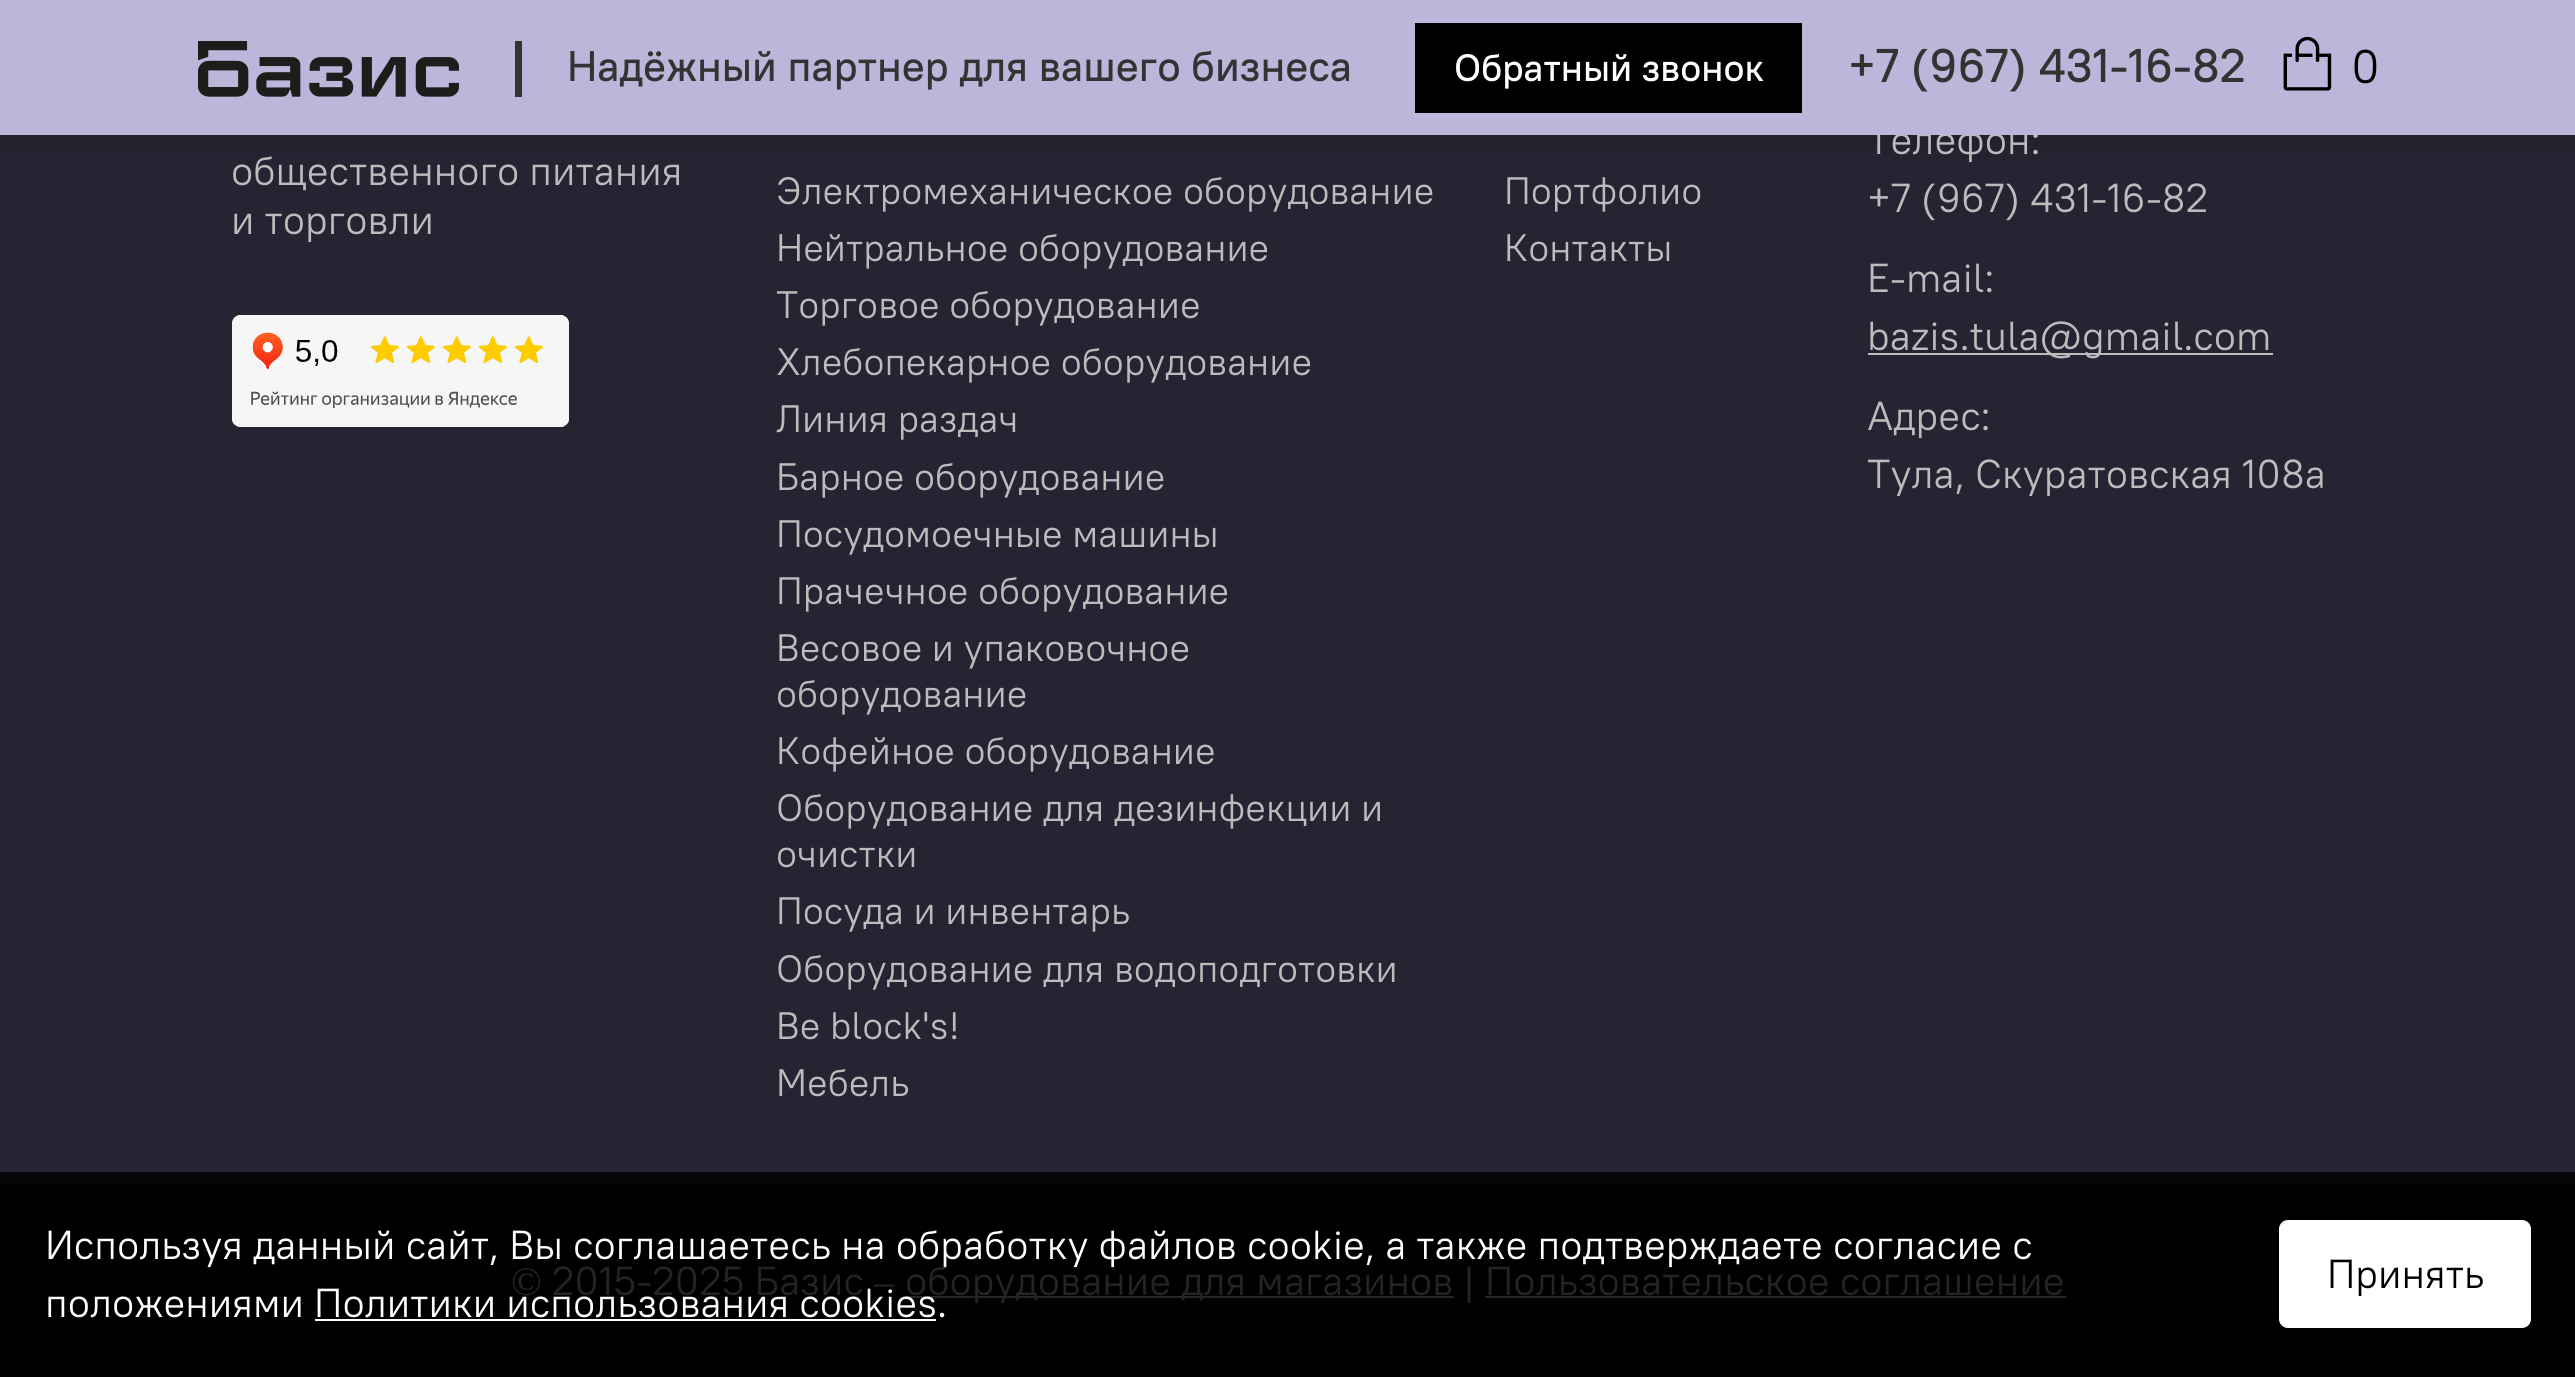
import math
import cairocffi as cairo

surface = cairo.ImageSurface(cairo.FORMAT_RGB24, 2575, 1377)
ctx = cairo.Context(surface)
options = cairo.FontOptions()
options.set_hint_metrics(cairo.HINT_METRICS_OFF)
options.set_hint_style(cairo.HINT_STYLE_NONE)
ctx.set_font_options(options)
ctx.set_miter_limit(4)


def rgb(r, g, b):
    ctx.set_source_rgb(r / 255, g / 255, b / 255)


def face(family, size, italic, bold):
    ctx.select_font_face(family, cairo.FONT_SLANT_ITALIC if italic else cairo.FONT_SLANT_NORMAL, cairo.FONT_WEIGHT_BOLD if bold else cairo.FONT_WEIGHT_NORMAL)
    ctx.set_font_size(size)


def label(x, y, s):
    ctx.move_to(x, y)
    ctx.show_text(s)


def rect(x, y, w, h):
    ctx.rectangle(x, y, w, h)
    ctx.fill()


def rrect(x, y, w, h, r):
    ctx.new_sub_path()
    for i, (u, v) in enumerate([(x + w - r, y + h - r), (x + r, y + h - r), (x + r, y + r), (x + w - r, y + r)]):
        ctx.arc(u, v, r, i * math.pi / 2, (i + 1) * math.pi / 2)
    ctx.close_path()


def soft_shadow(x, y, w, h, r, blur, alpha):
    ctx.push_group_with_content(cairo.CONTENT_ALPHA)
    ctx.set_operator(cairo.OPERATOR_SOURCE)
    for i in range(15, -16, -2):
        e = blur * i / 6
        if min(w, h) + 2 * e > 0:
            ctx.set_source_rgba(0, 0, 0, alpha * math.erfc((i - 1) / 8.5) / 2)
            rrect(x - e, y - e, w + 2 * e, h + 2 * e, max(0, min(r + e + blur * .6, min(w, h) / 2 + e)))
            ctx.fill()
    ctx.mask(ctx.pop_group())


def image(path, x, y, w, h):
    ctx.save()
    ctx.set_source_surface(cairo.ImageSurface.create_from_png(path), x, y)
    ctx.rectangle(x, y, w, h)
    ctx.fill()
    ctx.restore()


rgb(0, 0, 0)
ctx.paint()
rgb(38, 35, 50)
rect(0, 135, 2575, 1037)
rgb(0, 0, 0)
soft_shadow(-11, -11, 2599, 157, 0, 11, 0.1)
face('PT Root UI', 40.5, 0, 0)
rgb(188, 188, 188)
label(1867, 154, 'Телефон:')
rgb(189, 181, 218)
rect(0, 0, 2575, 135)
image('image0.png', 198, 41, 261, 56)
rgb(51, 51, 51)
rect(515, 41, 7, 56)
face('PT Root UI Medium', 42.75, 0, 0)
label(567, 81, 'Надёжный партнер для вашего бизнеса')
rgb(0, 0, 0)
rect(1415, 23, 387, 90)
face('PT Root UI Medium', 38.25, 0, 0)
rgb(255, 255, 255)
label(1454, 81, 'Обратный звонок')
face('PT Root UI Medium', 47.25, 0, 0)
rgb(51, 51, 51)
label(1848, 82, '+7 (967) 431-16-82')
image('image1.png', 2283, 36, 49, 55)
face('PT Root UI', 47.25, 0, 0)
rgb(0, 0, 0)
label(2351, 83, '0')
rgb(6, 5, 8)
rect(0, 1172, 2575, 12)
face('PT Root UI', 40.5, 0, 0)
rgb(188, 188, 188)
label(231, 185, 'общественного питания')
label(231, 234, 'и торговли')
image('image2.png', 232, 315, 337, 112)
face('PT Root UI', 38.25, 0, 0)
label(776, 204, 'Электромеханическое оборудование')
label(776, 261, 'Нейтральное оборудование')
label(776, 318, 'Торговое оборудование')
label(776, 375, 'Хлебопекарное оборудование')
label(776, 432, 'Линия раздач')
label(776, 490, 'Барное оборудование')
label(776, 547, 'Посудомоечные машины')
label(776, 604, 'Прачечное оборудование')
label(776, 661, 'Весовое и упаковочное')
label(776, 707, 'оборудование')
label(776, 764, 'Кофейное оборудование')
label(776, 821, 'Оборудование для дезинфекции и')
label(776, 867, 'очистки')
label(776, 924, 'Посуда и инвентарь')
label(776, 982, 'Оборудование для водоподготовки')
label(776, 1039, 'Be block\'s!')
label(776, 1096, 'Мебель')
label(1504, 204, 'Портфолио')
label(1504, 261, 'Контакты')
face('PT Root UI', 40.5, 0, 0)
label(1867, 212, '+7 (967) 431-16-82')
label(1867, 292, 'E-mail:')
rect(1868, 353, 405, 2)
label(1867, 350, 'bazis.tula@gmail.com')
label(1867, 430, 'Адрес:')
label(1867, 488, 'Тула, Скуратовская 108а')
face('Liberation Serif', 40.5, 0, 0)
rgb(36, 36, 36)
label(511, 1295, '©')
face('PT Root UI', 40.5, 0, 0)
label(552, 1295, '2015-2025 Базис')
face('Liberation Serif', 40.5, 0, 0)
label(874, 1295, '–')
rgb(38, 38, 38)
rect(905, 1296, 549, 2)
face('PT Root UI', 40.5, 0, 0)
rgb(36, 36, 36)
label(905, 1295, 'оборудование для магазинов')
label(1463, 1295, '|')
label(1485, 1295, 'Пользовательское соглашение')
rgb(38, 38, 38)
rect(1485, 1296, 581, 2)
rgb(255, 255, 255)
label(45, 1259, 'Используя данный сайт, Вы соглашаетесь на обработку файлов cookie, а также подтверждаете согласие с')
label(45, 1317, 'положениями Политики использования cookies.')
rect(315, 1319, 621, 2)
rrect(2280, 1221, 250, 106, 8)
ctx.fill_preserve()
ctx.stroke()
rgb(0, 0, 0)
label(2327, 1288, 'Принять')
surface.write_to_png('render.png')
